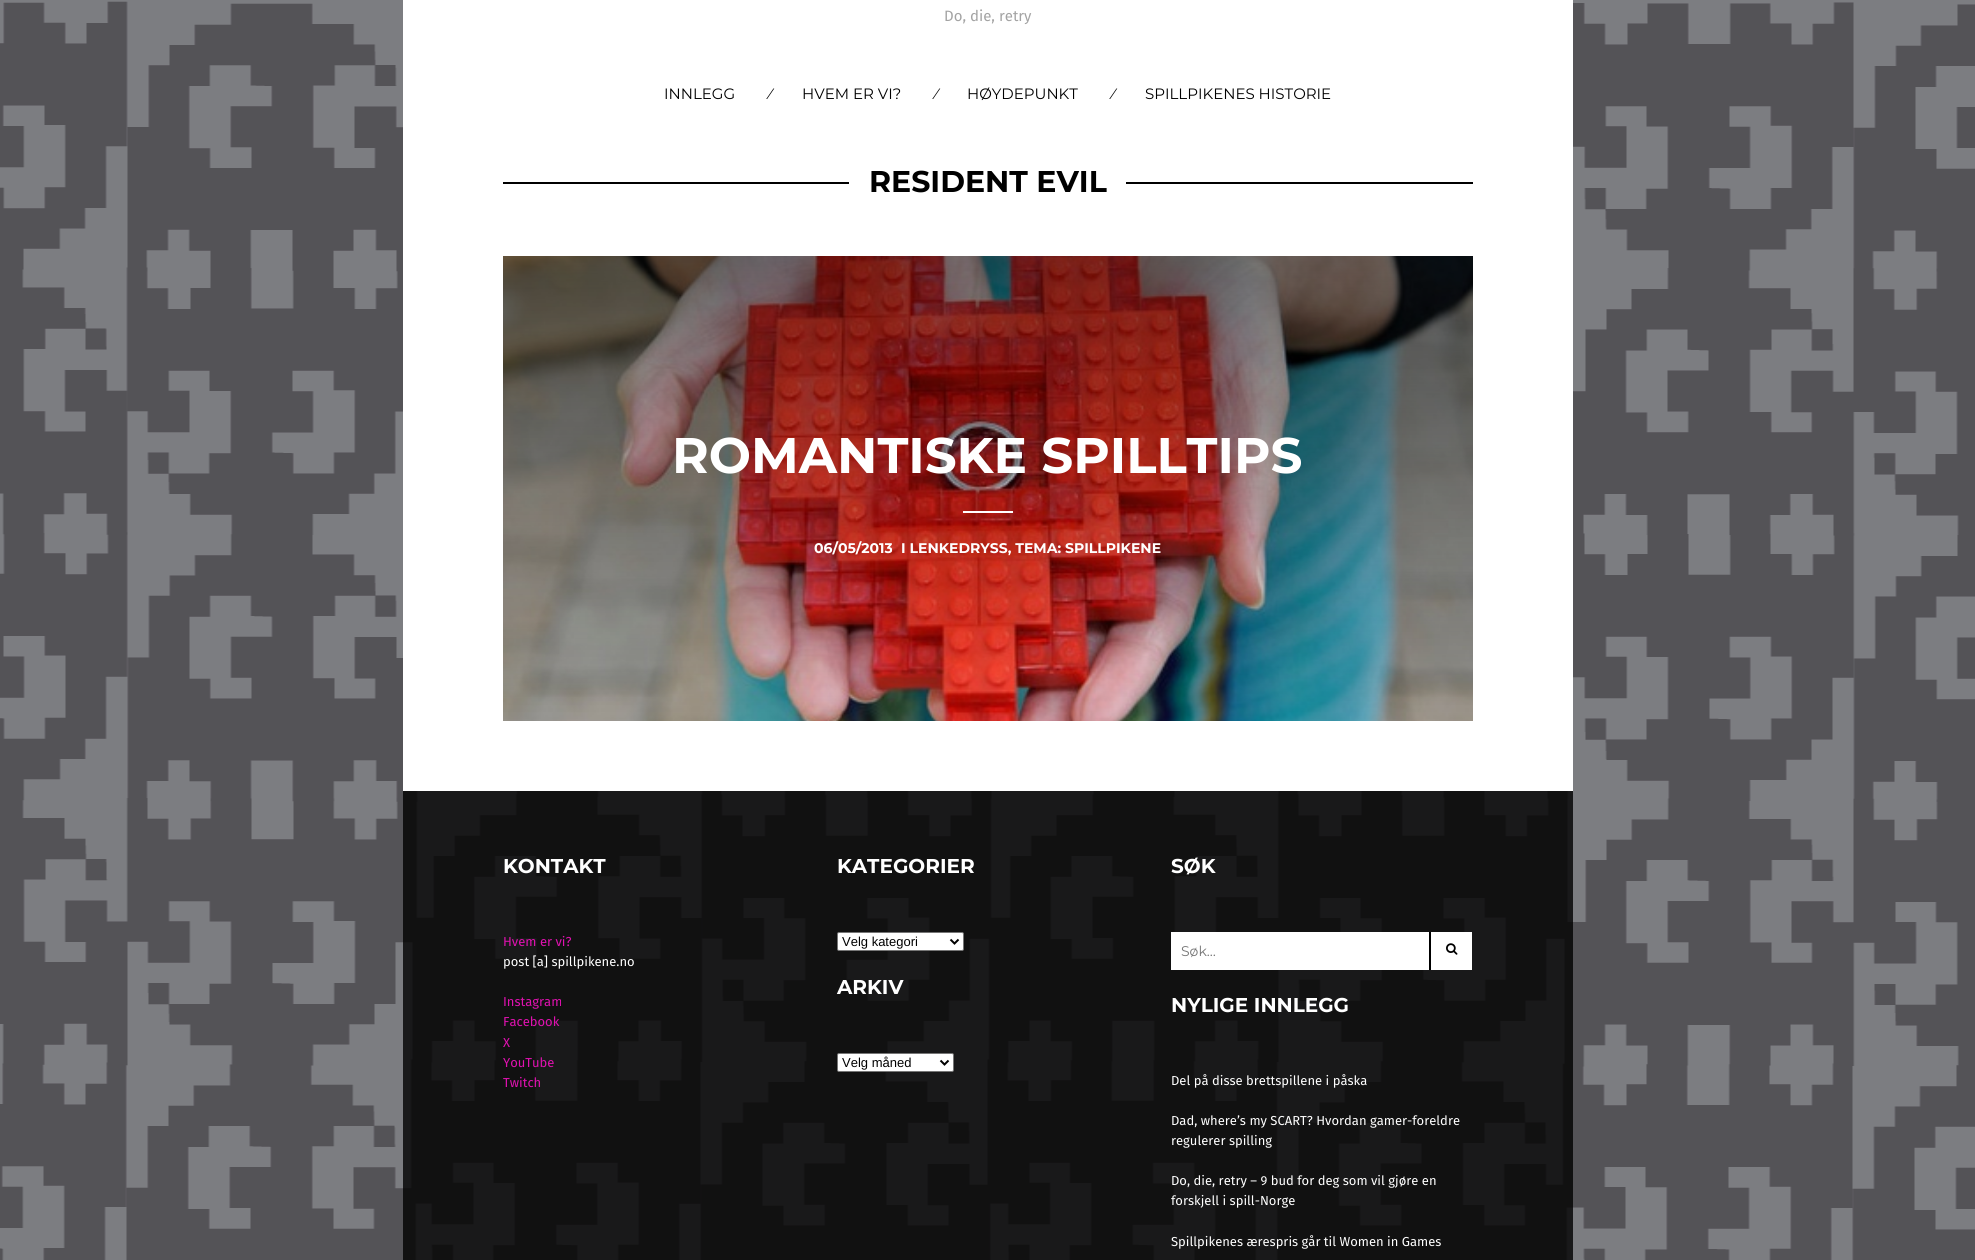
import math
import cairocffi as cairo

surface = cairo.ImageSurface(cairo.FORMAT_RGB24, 1975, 1260)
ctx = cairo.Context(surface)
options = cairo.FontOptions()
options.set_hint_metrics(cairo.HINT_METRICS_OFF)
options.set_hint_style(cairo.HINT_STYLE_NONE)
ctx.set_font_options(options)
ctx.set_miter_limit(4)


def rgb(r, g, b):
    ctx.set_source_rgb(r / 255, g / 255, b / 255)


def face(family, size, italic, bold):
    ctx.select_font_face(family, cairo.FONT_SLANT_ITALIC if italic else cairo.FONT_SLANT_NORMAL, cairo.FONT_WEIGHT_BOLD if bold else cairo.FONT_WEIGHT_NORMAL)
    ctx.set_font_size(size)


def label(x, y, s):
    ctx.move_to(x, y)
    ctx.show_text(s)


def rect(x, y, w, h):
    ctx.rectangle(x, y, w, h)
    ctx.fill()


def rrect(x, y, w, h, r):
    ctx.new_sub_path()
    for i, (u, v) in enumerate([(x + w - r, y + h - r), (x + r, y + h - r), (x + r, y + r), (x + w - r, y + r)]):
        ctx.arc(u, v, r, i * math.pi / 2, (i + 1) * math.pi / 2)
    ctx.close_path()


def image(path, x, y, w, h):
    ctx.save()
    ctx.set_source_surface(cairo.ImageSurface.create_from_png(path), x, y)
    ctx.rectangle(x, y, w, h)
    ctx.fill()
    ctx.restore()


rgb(255, 255, 255)
ctx.paint()
image('image0.png', 0, 0, 1975, 1260)
rgb(255, 255, 255)
rect(403, 0, 1170, 791)
face('Fira Sans', 15, 0, 0)
rgb(163, 163, 163)
label(944, 21, 'Do, die, retry')
face('Montserrat', 15, 0, 0)
rgb(0, 0, 0)
label(664, 99, 'INNLEGG')
label(769, 99, '⁄')
label(802, 99, 'HVEM ER VI?')
label(935, 99, '⁄')
label(967, 99, 'HØYDEPUNKT')
label(1112, 99, '⁄')
label(1145, 99, 'SPILLPIKENES HISTORIE')
rect(503, 182, 970, 2)
rgb(255, 255, 255)
rect(849, 182, 277, 2)
face('Montserrat', 30, 0, 1)
rgb(0, 0, 0)
label(869, 192, 'RESIDENT EVIL')
image('image1.png', 503, 256, 970, 465)
face('Montserrat', 50, 0, 1)
rgb(255, 255, 255)
label(672, 473, 'ROMANTISKE SPILLTIPS')
rect(963, 511, 50, 2)
face('Montserrat', 14, 0, 1)
label(814, 553, '06/05/2013')
label(901, 553, 'I LENKEDRYSS, TEMA: SPILLPIKENE')
ctx.set_source_rgba(0, 0, 0, 0.8)
rect(403, 791, 1170, 469)
face('Montserrat', 20, 0, 1)
rgb(255, 255, 255)
label(503, 873, 'KONTAKT')
face('Fira Sans', 13, 0, 0)
rgb(224, 17, 176)
label(503, 946, 'Hvem er vi?')
rgb(255, 255, 255)
label(503, 966, 'post [a] spillpikene.no')
rgb(224, 17, 176)
label(503, 1006, 'Instagram')
label(503, 1026, 'Facebook')
label(503, 1047, 'X')
label(503, 1067, 'YouTube')
label(503, 1087, 'Twitch')
face('Montserrat', 20, 0, 1)
rgb(255, 255, 255)
label(837, 873, 'KATEGORIER')
rrect(837.5, 932.5, 126, 18, 1.5)
ctx.fill_preserve()
rgb(118, 118, 118)
ctx.set_line_width(1)
ctx.stroke()
ctx.new_path()
ctx.move_to(950.5, 939.5)
ctx.line_to(954.5, 943.5)
ctx.line_to(958.5, 939.5)
rgb(0, 0, 0)
ctx.set_line_width(2)
ctx.stroke()
face('Liberation Sans', 13, 0, 0)
label(842, 946, 'Velg kategori')
face('Montserrat', 20, 0, 1)
rgb(255, 255, 255)
label(837, 994, 'ARKIV')
rrect(837.5, 1053.5, 116, 18, 1.5)
ctx.fill_preserve()
rgb(118, 118, 118)
ctx.set_line_width(1)
ctx.stroke()
ctx.new_path()
ctx.move_to(940.5, 1060.5)
ctx.line_to(944.5, 1064.5)
ctx.line_to(948.5, 1060.5)
rgb(0, 0, 0)
ctx.set_line_width(2)
ctx.stroke()
face('Liberation Sans', 13, 0, 0)
label(842, 1067, 'Velg måned')
face('Montserrat', 20, 0, 1)
rgb(255, 255, 255)
label(1171, 873, 'SØK')
rect(1171, 932, 301, 38)
face('Montserrat', 14, 0, 0)
rgb(117, 117, 117)
label(1181, 956, 'Søk…')
rgb(0, 0, 0)
rect(1429, 932, 2, 38)
image('image2.png', 1446, 943, 12, 12)
face('Montserrat', 20, 0, 1)
rgb(255, 255, 255)
label(1171, 1012, 'NYLIGE INNLEGG')
face('Fira Sans', 13, 0, 0)
label(1171, 1085, 'Del på disse brettspillene i påska')
label(1171, 1125, 'Dad, where’s my SCART? Hvordan gamer-foreldre')
label(1171, 1145, 'regulerer spilling')
label(1171, 1185, 'Do, die, retry – 9 bud for deg som vil gjøre en')
label(1171, 1205, 'forskjell i spill-Norge')
label(1171, 1246, 'Spillpikenes ærespris går til Women in Games')
surface.write_to_png('render.png')
